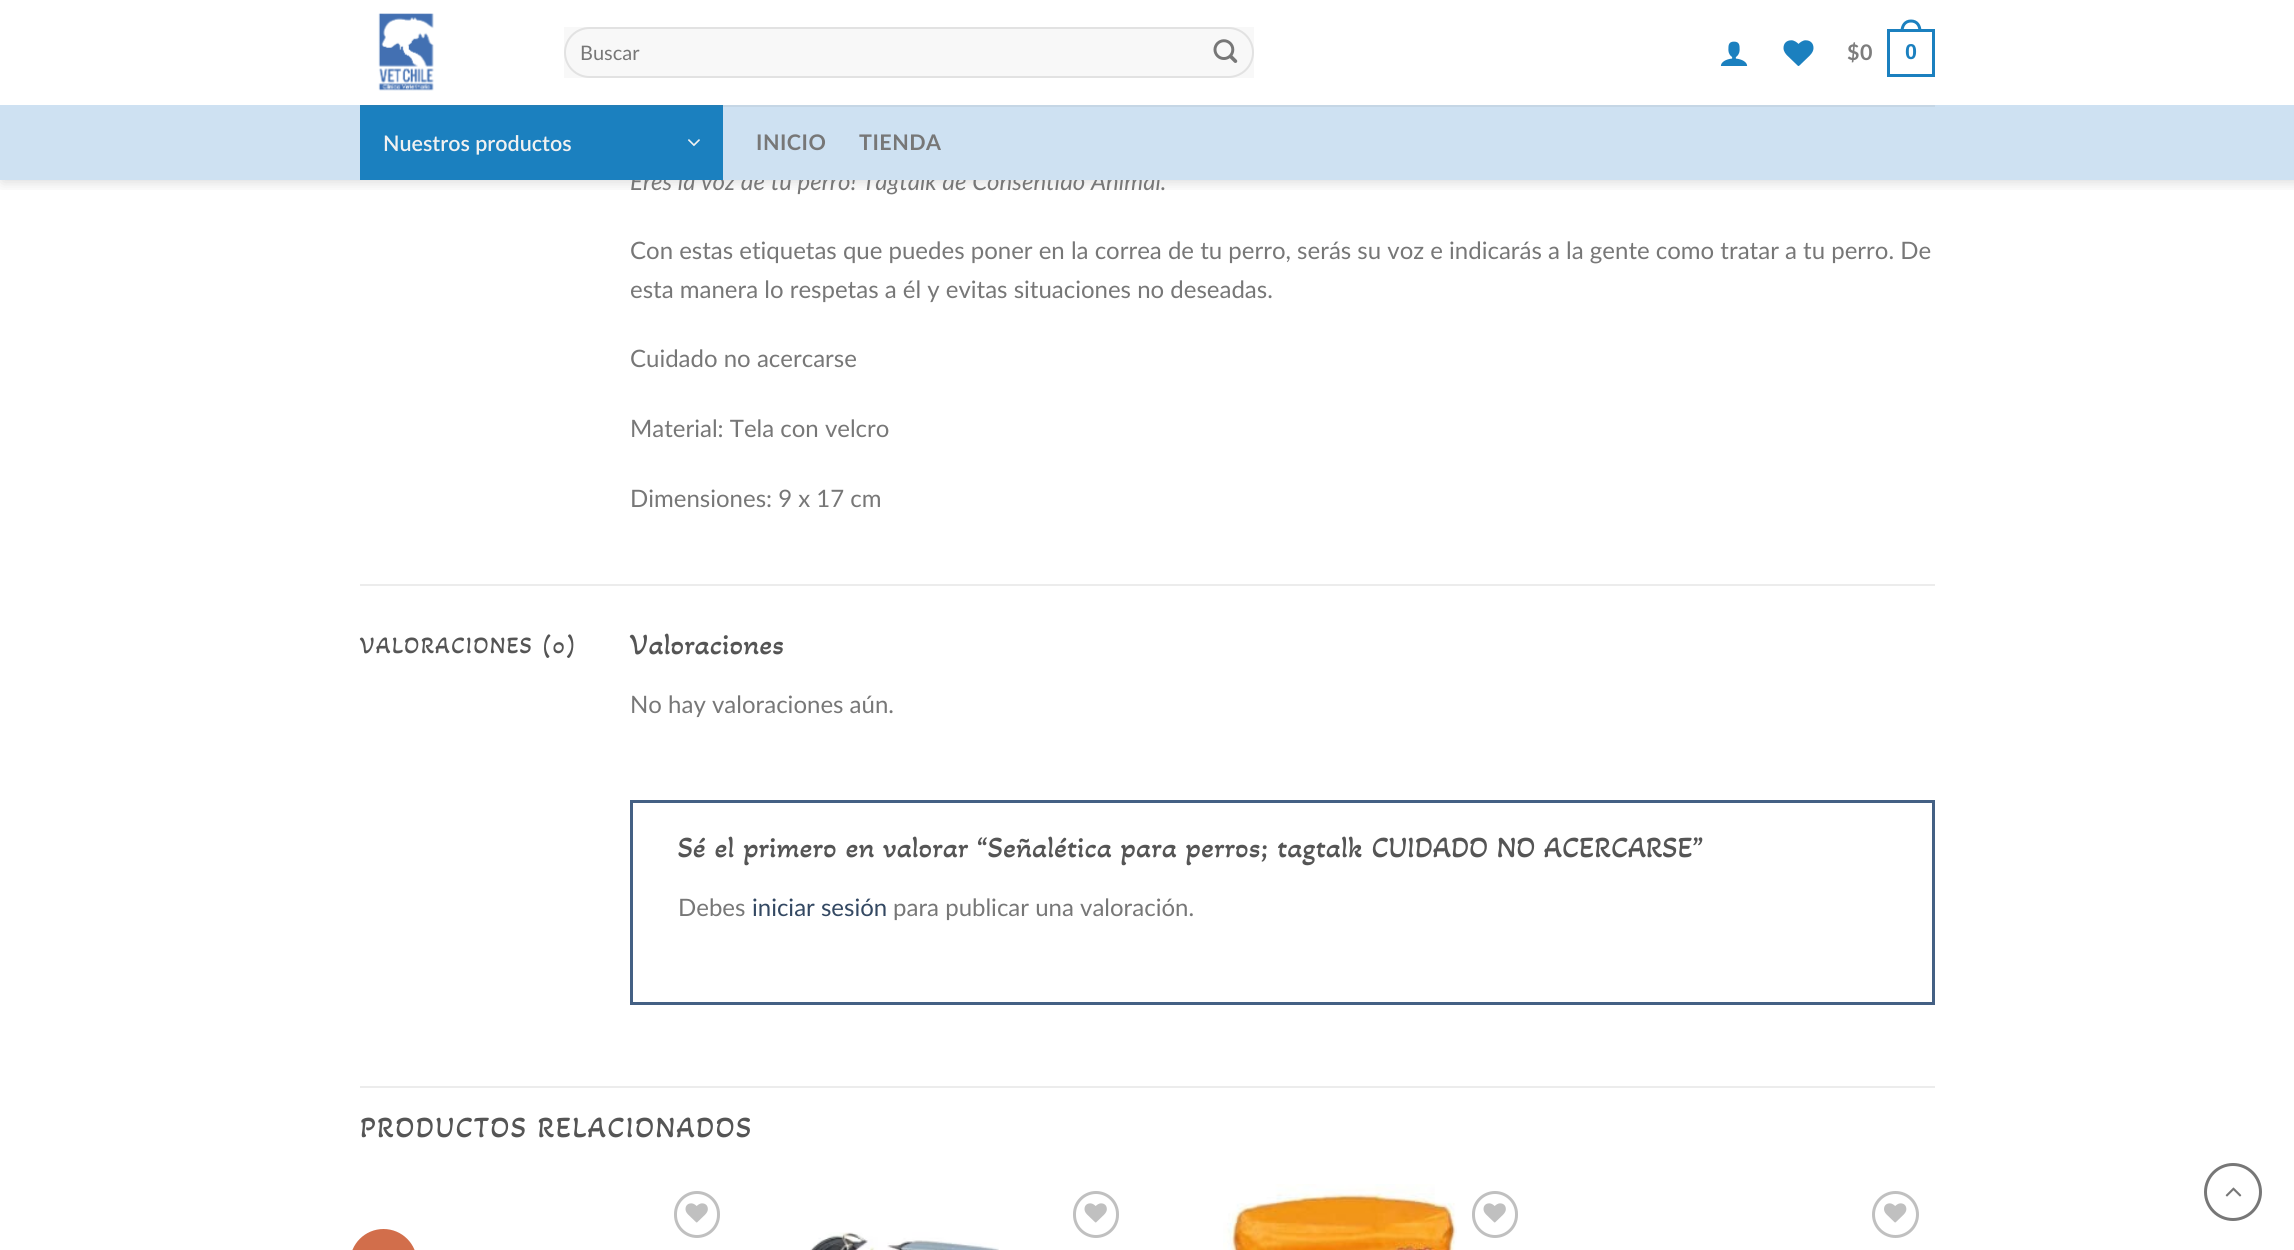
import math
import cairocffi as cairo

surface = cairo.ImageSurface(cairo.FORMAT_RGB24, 2294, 1250)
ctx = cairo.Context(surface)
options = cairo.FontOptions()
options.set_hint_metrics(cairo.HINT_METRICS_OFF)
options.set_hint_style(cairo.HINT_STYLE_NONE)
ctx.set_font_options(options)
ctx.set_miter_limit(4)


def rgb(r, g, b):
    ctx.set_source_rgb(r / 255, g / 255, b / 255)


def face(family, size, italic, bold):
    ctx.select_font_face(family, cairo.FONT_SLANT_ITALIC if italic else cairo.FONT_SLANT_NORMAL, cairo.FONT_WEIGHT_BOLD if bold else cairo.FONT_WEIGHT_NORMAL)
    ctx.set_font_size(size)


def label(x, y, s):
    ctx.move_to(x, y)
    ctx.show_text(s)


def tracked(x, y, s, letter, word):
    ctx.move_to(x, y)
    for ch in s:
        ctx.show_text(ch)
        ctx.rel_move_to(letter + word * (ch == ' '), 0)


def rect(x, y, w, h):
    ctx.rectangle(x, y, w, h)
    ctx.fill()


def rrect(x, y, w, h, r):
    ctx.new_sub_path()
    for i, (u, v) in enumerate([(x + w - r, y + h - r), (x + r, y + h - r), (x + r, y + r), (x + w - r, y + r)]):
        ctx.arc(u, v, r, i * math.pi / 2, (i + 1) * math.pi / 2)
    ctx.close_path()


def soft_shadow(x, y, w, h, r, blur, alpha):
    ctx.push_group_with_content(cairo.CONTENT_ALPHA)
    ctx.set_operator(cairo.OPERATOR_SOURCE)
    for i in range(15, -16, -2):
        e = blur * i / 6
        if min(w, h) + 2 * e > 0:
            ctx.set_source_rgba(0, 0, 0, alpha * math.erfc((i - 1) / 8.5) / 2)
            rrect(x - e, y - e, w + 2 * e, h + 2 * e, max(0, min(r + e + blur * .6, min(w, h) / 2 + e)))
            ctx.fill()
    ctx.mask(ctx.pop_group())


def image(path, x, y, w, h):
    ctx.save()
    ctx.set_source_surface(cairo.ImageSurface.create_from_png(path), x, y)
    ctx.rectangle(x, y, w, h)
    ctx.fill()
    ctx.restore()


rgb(255, 255, 255)
ctx.paint()
ctx.save()
ctx.rectangle(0, 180, 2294, 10)
ctx.clip()
rgb(0, 0, 0)
soft_shadow(2, 2, 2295, 180, 0, 7.5, 0.15)
ctx.restore()
image('image0.png', 378, 13, 56, 78)
ctx.set_source_rgba(0, 0, 0, 0.03)
rect(564, 27, 690, 51)
rrect(565, 28, 688, 49, 24.5)
ctx.set_source_rgba(0, 0, 0, 0.09)
ctx.stroke()
face('Lato', 20, 0, 0)
rgb(119, 119, 119)
label(580, 60, 'Buscar')
image('image1.png', 1213, 39, 25, 24)
image('image2.png', 1720, 41, 28, 25)
image('image3.png', 1783, 40, 31, 26)
face('Lato', 21.5, 0, 1)
rgb(125, 125, 125)
tracked(1847, 60, '$0', 0.5, 0)
ctx.rectangle(1888.5, 30.5, 45, 45)
rgb(27, 128, 191)
ctx.set_line_width(3)
ctx.stroke()
ctx.set_fill_rule(cairo.FILL_RULE_EVEN_ODD)
ctx.new_path()
ctx.move_to(1911, 19.5)
ctx.curve_to(1918, 19.5, 1921.5, 25, 1921.5, 31.5)
ctx.line_to(1900.5, 31.5)
ctx.curve_to(1900.5, 25, 1904, 19.5, 1911, 19.5)
ctx.close_path()
ctx.move_to(1911, 22.5)
ctx.curve_to(1916.5, 22.5, 1918.5, 27, 1918.5, 31.5)
ctx.line_to(1903.5, 31.5)
ctx.curve_to(1903.5, 27, 1905.5, 22.5, 1911, 22.5)
ctx.close_path()
ctx.fill()
face('Liberation Sans', 21.5, 0, 1)
tracked(1905, 59, '0', 0.5, 0)
face('Lato', 24, 1, 0)
rgb(119, 119, 119)
label(630, 190, 'Eres la voz de tu perro! Tagtalk de Consentido Animal.')
rgb(206, 225, 242)
rect(0, 105, 2294, 75)
rgb(27, 128, 191)
rect(360, 105, 363, 75)
ctx.set_source_rgba(0.467, 0.467, 0.467, 0.1)
rect(360, 105, 1575, 2)
face('Lato SemiBold', 21.5, 0, 0)
rgb(241, 241, 241)
label(383, 151, 'Nuestros productos')
image('image4.png', 688, 139, 12, 8)
face('Lato', 21.5, 0, 1)
rgb(119, 119, 119)
tracked(756, 150, 'INICIO', 0.5, 0)
tracked(859, 150, 'TIENDA', 0.5, 0)
face('Lato', 24, 0, 0)
label(630, 259, 'Con estas etiquetas que puedes poner en la correa de tu perro, serás su voz e indicarás a la gente como tratar a tu perro. De')
label(630, 298, 'esta manera lo respetas a él y evitas situaciones no deseadas.')
label(630, 367, 'Cuidado no acercarse')
label(630, 437, 'Material: Tela con velcro')
label(630, 507, 'Dimensiones: 9 x 17 cm')
rgb(236, 236, 236)
rect(360, 584, 1575, 2)
face('Akaya Telivigala', 24, 0, 0)
rgb(85, 85, 85)
tracked(360, 653, 'VALORACIONES (0)', 1.25, 0)
face('Akaya Telivigala', 30, 0, 0)
label(630, 654, 'Valoraciones')
face('Lato', 24, 0, 0)
rgb(119, 119, 119)
label(630, 713, 'No hay valoraciones aún.')
ctx.rectangle(631.5, 801.5, 1302, 202)
rgb(68, 96, 132)
ctx.stroke()
face('Akaya Telivigala', 30, 0, 0)
rgb(85, 85, 85)
label(678, 857, 'Sé el primero en valorar “Señalética para perros; tagtalk CUIDADO NO ACERCARSE”')
face('Lato', 24, 0, 0)
rgb(119, 119, 119)
label(678, 916, 'Debes')
rgb(51, 72, 98)
label(752, 916, 'iniciar sesión')
rgb(119, 119, 119)
label(893, 916, 'para publicar una valoración.')
rgb(236, 236, 236)
rect(360, 1086, 1575, 2)
face('Akaya Telivigala', 30, 0, 0)
rgb(85, 85, 85)
tracked(360, 1137, 'PRODUCTOS RELACIONADOS', 1.5, 0)
rrect(675.5, 1192.5, 43, 44, 21.5)
rgb(192, 192, 192)
ctx.stroke()
image('image5.png', 685, 1203, 23, 20)
rgb(210, 110, 75)
rrect(350, 1229, 67, 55, 33.5)
ctx.fill()
rrect(1074.5, 1192.5, 43, 44, 21.5)
rgb(192, 192, 192)
ctx.stroke()
image('image5.png', 1084, 1203, 23, 20)
image('image6.png', 810, 1232, 189, 18)
image('image7.png', 1223, 1184, 234, 66)
rrect(1473.5, 1192.5, 43, 44, 21.5)
ctx.stroke()
image('image5.png', 1483, 1203, 23, 20)
ctx.arc(1895.5, 1214.5, 22, 0, 2 * math.pi)
ctx.stroke()
image('image8.png', 1884, 1203, 23, 20)
ctx.arc(2233, 1192, 27.5, 0, 2 * math.pi)
rgb(119, 119, 119)
ctx.stroke()
image('image9.png', 2225, 1187, 17, 10)
surface.write_to_png('render.png')
